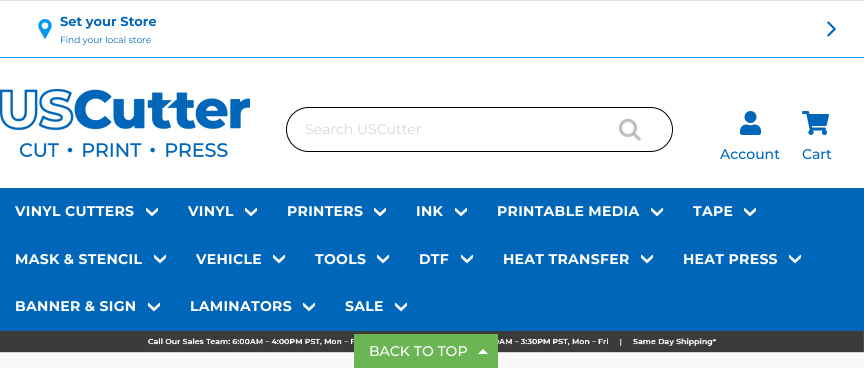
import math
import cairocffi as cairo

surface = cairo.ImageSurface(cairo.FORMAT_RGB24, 864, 368)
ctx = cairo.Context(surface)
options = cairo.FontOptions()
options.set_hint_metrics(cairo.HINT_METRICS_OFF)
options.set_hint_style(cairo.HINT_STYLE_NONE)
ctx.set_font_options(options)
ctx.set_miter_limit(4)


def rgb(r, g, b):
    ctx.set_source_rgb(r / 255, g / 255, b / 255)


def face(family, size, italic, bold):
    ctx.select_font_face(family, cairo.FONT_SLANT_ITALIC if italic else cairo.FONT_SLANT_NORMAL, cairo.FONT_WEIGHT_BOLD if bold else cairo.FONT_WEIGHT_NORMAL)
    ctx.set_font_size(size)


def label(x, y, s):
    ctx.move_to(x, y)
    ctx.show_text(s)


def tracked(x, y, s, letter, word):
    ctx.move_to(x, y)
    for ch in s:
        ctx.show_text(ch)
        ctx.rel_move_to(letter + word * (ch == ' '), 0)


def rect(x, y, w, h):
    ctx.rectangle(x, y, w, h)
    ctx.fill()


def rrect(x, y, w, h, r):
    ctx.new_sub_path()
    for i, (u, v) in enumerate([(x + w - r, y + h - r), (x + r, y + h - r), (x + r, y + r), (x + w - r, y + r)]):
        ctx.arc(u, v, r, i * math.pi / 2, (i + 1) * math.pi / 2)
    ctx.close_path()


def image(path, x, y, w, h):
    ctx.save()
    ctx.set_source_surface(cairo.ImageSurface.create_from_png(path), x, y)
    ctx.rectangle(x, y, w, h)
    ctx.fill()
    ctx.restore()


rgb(255, 255, 255)
ctx.paint()
rgb(221, 221, 221)
rect(0, 0, 864, 1)
rgb(0, 151, 245)
rect(0, 57, 864, 1)
image('image0.png', 38, 19, 14, 20)
face('Montserrat', 13, 0, 1)
rgb(0, 102, 185)
label(60, 26, 'Set your Store')
face('Montserrat', 9, 0, 0)
label(60, 43, 'Find your local store')
image('image1.png', 827, 21, 9, 16)
rgb(214, 214, 214)
rect(0, 352, 864, 1)
image('image2.png', 0, 89, 250, 68)
rrect(286.5, 107.5, 386, 44, 22)
rgb(0, 0, 0)
ctx.set_line_width(1)
ctx.stroke()
face('Montserrat', 14, 0, 0)
rgb(214, 214, 214)
label(305, 134, 'Search USCutter')
image('image3.png', 619, 119, 22, 22)
image('image4.png', 740, 111, 21, 24)
face('Montserrat Medium', 14, 0, 0)
rgb(0, 102, 185)
label(720, 159, 'Account')
image('image5.png', 802, 111, 27, 24)
label(802, 159, 'Cart')
rect(0, 188, 864, 143)
face('Montserrat', 14, 0, 1)
rgb(255, 255, 255)
tracked(15, 216, 'VINYL CUTTERS', 0.3, 0)
image('image6.png', 146, 207, 12, 10)
tracked(188, 216, 'VINYL', 0.3, 0)
image('image6.png', 245, 207, 12, 10)
tracked(287, 216, 'PRINTERS', 0.3, 0)
image('image6.png', 374, 207, 12, 10)
tracked(416, 216, 'INK', 0.3, 0)
image('image6.png', 455, 207, 12, 10)
tracked(497, 216, 'PRINTABLE MEDIA', 0.3, 0)
image('image6.png', 651, 207, 12, 10)
tracked(693, 216, 'TAPE', 0.3, 0)
image('image6.png', 744, 207, 12, 10)
tracked(15, 264, 'MASK & STENCIL', 0.3, 0)
image('image6.png', 154, 254, 12, 10)
tracked(196, 264, 'VEHICLE', 0.3, 0)
image('image6.png', 273, 254, 12, 10)
tracked(315, 264, 'TOOLS', 0.3, 0)
image('image6.png', 377, 254, 12, 10)
tracked(419, 264, 'DTF', 0.3, 0)
image('image6.png', 461, 254, 12, 10)
tracked(503, 264, 'HEAT TRANSFER', 0.3, 0)
image('image6.png', 641, 254, 12, 10)
tracked(683, 264, 'HEAT PRESS', 0.3, 0)
image('image6.png', 789, 254, 12, 10)
tracked(15, 311, 'BANNER & SIGN', 0.3, 0)
image('image6.png', 148, 302, 12, 10)
tracked(190, 311, 'LAMINATORS', 0.3, 0)
image('image6.png', 303, 302, 12, 10)
tracked(345, 311, 'SALE', 0.3, 0)
image('image6.png', 395, 302, 12, 10)
image('image7.png', 0, 331, 864, 21)
rgb(249, 249, 249)
rect(0, 353, 864, 15)
rgb(108, 181, 85)
rect(354, 334, 144, 34)
face('Montserrat Medium', 14, 0, 0)
rgb(255, 255, 255)
label(369, 356, 'BACK TO TOP')
ctx.new_path()
ctx.move_to(488, 354)
ctx.line_to(478, 354)
ctx.line_to(483, 349)
ctx.close_path()
ctx.fill()
surface.write_to_png('render.png')
